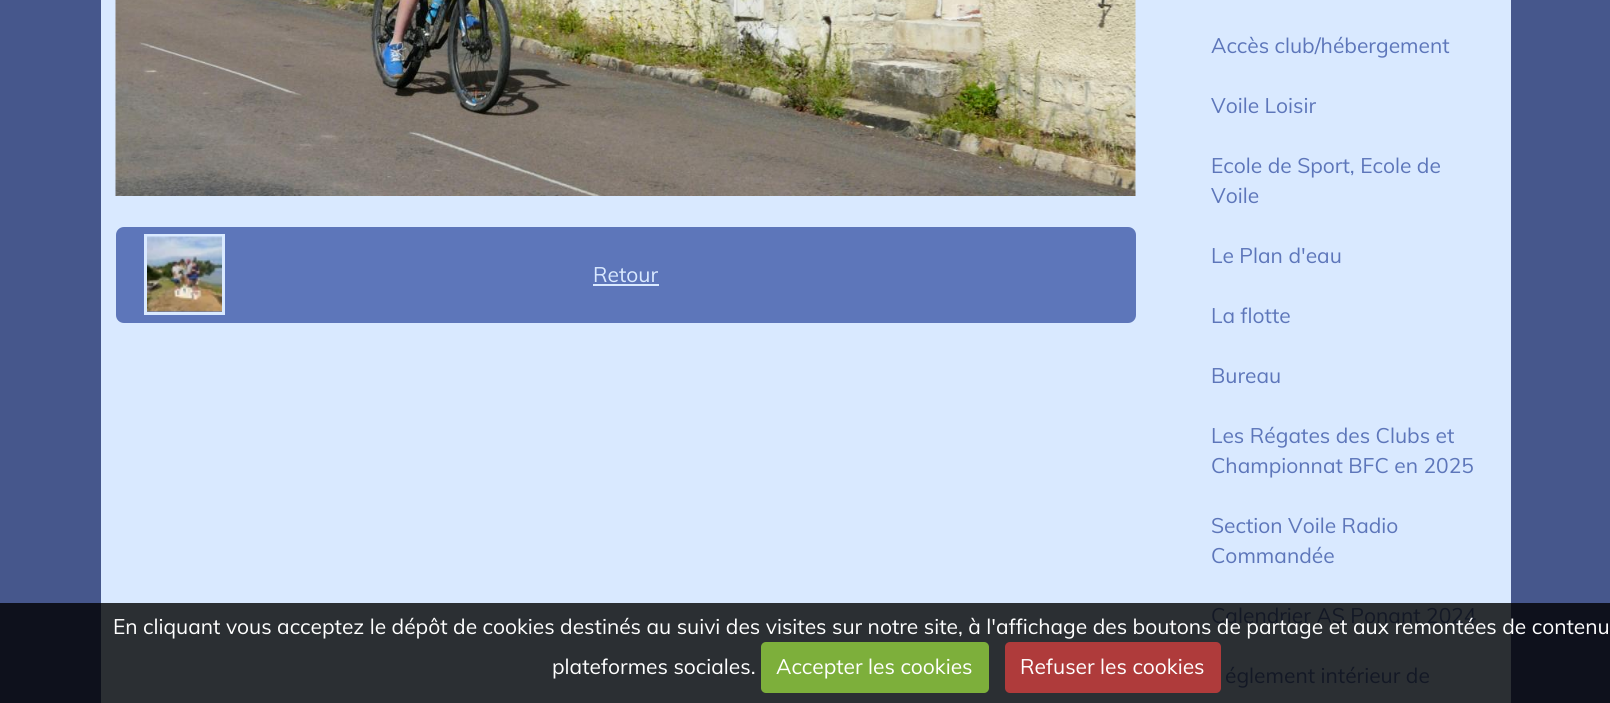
import math
import cairocffi as cairo

surface = cairo.ImageSurface(cairo.FORMAT_RGB24, 1610, 703)
ctx = cairo.Context(surface)
options = cairo.FontOptions()
options.set_hint_metrics(cairo.HINT_METRICS_OFF)
options.set_hint_style(cairo.HINT_STYLE_NONE)
ctx.set_font_options(options)
ctx.set_miter_limit(4)


def rgb(r, g, b):
    ctx.set_source_rgb(r / 255, g / 255, b / 255)


def face(family, size, italic, bold):
    ctx.select_font_face(family, cairo.FONT_SLANT_ITALIC if italic else cairo.FONT_SLANT_NORMAL, cairo.FONT_WEIGHT_BOLD if bold else cairo.FONT_WEIGHT_NORMAL)
    ctx.set_font_size(size)


def label(x, y, s):
    ctx.move_to(x, y)
    ctx.show_text(s)


def rect(x, y, w, h):
    ctx.rectangle(x, y, w, h)
    ctx.fill()


def rrect(x, y, w, h, r):
    ctx.new_sub_path()
    for i, (u, v) in enumerate([(x + w - r, y + h - r), (x + r, y + h - r), (x + r, y + r), (x + w - r, y + r)]):
        ctx.arc(u, v, r, i * math.pi / 2, (i + 1) * math.pi / 2)
    ctx.close_path()


def image(path, x, y, w, h):
    ctx.save()
    ctx.set_source_surface(cairo.ImageSurface.create_from_png(path), x, y)
    ctx.rectangle(x, y, w, h)
    ctx.fill()
    ctx.restore()


rgb(70, 87, 140)
ctx.paint()
rgb(14, 17, 28)
rect(0, 603, 1610, 100)
rgb(217, 233, 255)
rect(101, 0, 1410, 603)
rgb(43, 47, 51)
rect(101, 603, 1410, 100)
image('image0.png', 115, 0, 1021, 196)
rgb(93, 118, 186)
ctx.new_path()
ctx.move_to(124, 227)
ctx.line_to(456, 227)
ctx.line_to(456, 323)
ctx.line_to(124, 323)
ctx.curve_to(119.5, 323, 116, 319.5, 116, 315)
ctx.line_to(116, 235)
ctx.curve_to(116, 230.5, 119.5, 227, 124, 227)
ctx.close_path()
ctx.fill()
ctx.rectangle(145.5, 235.5, 78, 78)
rgb(217, 233, 255)
ctx.set_line_width(3)
ctx.stroke()
image('image1.png', 147, 236, 75, 76)
rgb(93, 118, 186)
rect(456, 227, 339, 96)
face('Muli', 21, 0, 0)
rgb(217, 233, 255)
label(593, 282, 'Retour')
rect(593, 284, 66, 2)
rgb(93, 118, 186)
ctx.new_path()
ctx.move_to(795, 227)
ctx.line_to(1128, 227)
ctx.curve_to(1132.5, 227, 1136, 230.5, 1136, 235)
ctx.line_to(1136, 315)
ctx.curve_to(1136, 319.5, 1132.5, 323, 1128, 323)
ctx.line_to(795, 323)
ctx.close_path()
ctx.fill()
label(1211, 53, 'Accès club/hébergement')
label(1211, 113, 'Voile Loisir')
label(1211, 173, 'Ecole de Sport, Ecole de')
label(1211, 203, 'Voile')
label(1211, 263, 'Le Plan d\'eau')
label(1211, 323, 'La flotte')
label(1211, 383, 'Bureau')
label(1211, 443, 'Les Régates des Clubs et')
label(1211, 473, 'Championnat BFC en 2025')
label(1211, 533, 'Section Voile Radio')
label(1211, 563, 'Commandée')
rgb(19, 24, 37)
label(1211, 623, 'Calendrier AS Ponant 2024')
label(1225, 683, 'églement intérieur de')
rgb(255, 255, 255)
label(113, 634, 'En cliquant vous acceptez le dépôt de cookies destinés au suivi des visites sur notre site, à l\'affichage des boutons de partage et aux remontées de contenu')
label(552, 674, 'plateformes sociales.')
rgb(125, 175, 59)
rrect(761, 642, 228, 51, 5)
ctx.fill()
rgb(255, 255, 255)
label(776, 674, 'Accepter les cookies')
rgb(175, 59, 59)
rrect(1005, 642, 216, 51, 5)
ctx.fill()
rgb(255, 255, 255)
label(1020, 674, 'Refuser les cookies')
surface.write_to_png('render.png')
